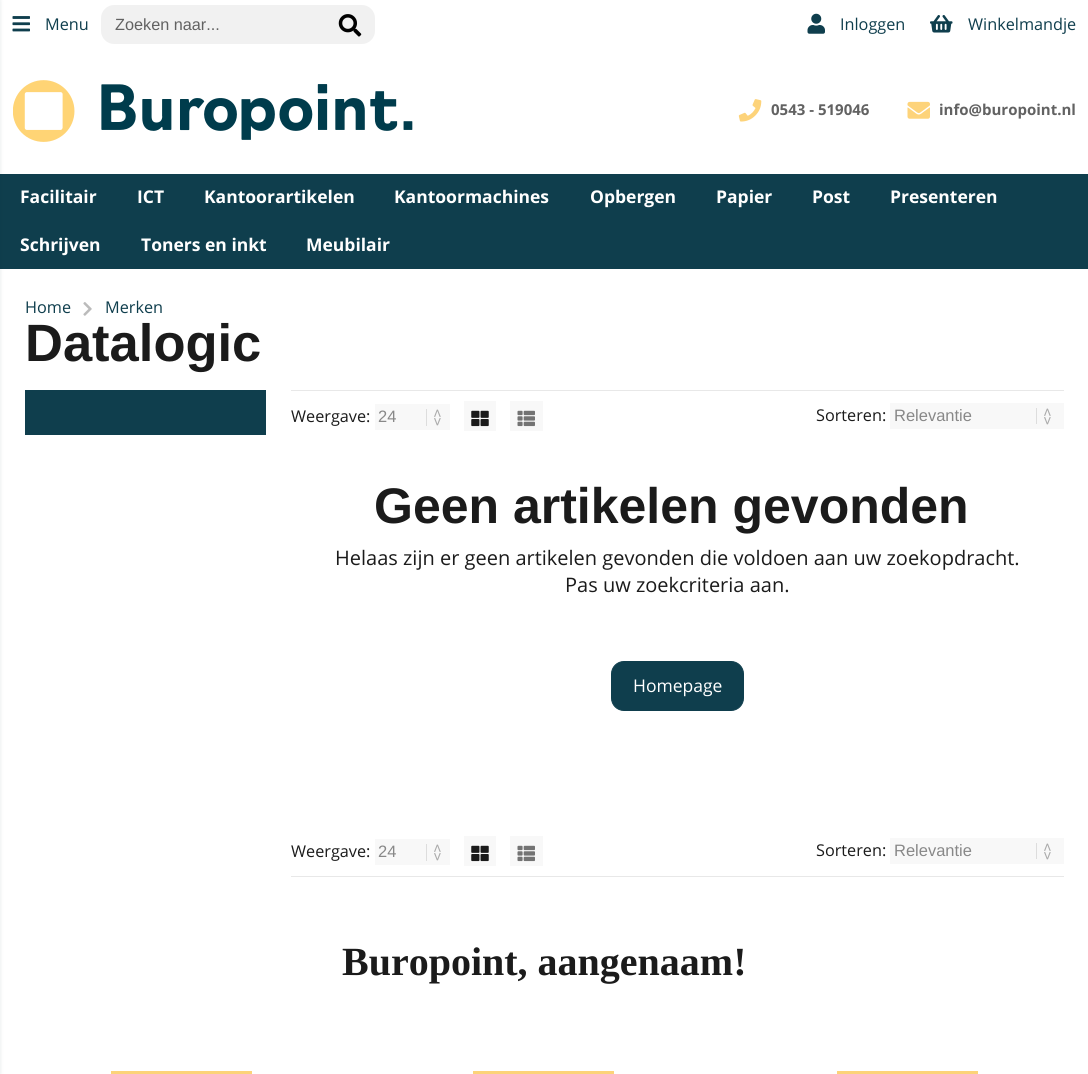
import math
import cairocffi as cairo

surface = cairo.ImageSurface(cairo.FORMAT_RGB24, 1088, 1074)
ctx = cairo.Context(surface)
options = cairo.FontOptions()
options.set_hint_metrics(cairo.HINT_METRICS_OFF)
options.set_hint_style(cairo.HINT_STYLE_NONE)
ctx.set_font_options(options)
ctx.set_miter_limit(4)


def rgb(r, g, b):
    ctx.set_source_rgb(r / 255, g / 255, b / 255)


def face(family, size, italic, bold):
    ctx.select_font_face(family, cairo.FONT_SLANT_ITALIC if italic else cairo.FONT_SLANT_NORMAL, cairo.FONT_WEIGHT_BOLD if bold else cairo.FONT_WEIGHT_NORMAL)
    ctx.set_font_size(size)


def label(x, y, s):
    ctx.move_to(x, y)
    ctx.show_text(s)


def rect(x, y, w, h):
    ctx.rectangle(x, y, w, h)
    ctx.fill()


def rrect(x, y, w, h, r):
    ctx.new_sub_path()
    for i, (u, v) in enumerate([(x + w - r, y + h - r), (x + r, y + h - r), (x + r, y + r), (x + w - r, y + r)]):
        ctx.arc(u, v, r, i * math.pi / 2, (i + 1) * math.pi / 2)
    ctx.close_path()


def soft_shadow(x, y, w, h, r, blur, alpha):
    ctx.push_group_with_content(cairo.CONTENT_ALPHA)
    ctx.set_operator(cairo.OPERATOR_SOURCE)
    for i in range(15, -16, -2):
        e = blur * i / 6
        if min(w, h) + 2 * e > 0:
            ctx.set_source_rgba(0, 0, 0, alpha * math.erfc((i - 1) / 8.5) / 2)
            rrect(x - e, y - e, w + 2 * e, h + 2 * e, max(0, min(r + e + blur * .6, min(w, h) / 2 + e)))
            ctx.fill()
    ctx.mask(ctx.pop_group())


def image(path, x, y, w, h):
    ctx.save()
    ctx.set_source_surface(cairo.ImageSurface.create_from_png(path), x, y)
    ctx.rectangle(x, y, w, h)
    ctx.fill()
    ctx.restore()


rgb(255, 255, 255)
ctx.paint()
rgb(15, 62, 77)
rect(0, 174, 1088, 95)
rgb(7, 43, 50)
soft_shadow(-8, 0, 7, 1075, 0, 2.5, 0.15)
image('image0.png', 12, 16, 18, 16)
face('Open Sans', 16.25, 0, 0)
rgb(15, 62, 77)
label(45, 30, 'Menu')
rgb(241, 241, 241)
ctx.new_path()
ctx.move_to(114, 5)
ctx.line_to(326, 5)
ctx.line_to(326, 44)
ctx.line_to(114, 44)
ctx.curve_to(107, 44, 101, 38, 101, 31)
ctx.line_to(101, 18)
ctx.curve_to(101, 11, 107, 5, 114, 5)
ctx.close_path()
ctx.fill()
face('Liberation Sans', 16.25, 0, 0)
rgb(98, 98, 98)
label(115, 30, 'Zoeken naar...')
rgb(241, 241, 241)
ctx.new_path()
ctx.move_to(325, 5)
ctx.line_to(362, 5)
ctx.curve_to(369, 5, 375, 11, 375, 18)
ctx.line_to(375, 31)
ctx.curve_to(375, 38, 369, 44, 362, 44)
ctx.line_to(325, 44)
ctx.close_path()
ctx.fill()
image('image1.png', 338, 14, 24, 23)
image('image2.png', 807, 13, 18, 21)
face('Open Sans', 16.25, 0, 0)
rgb(15, 62, 77)
label(840, 30, 'Inloggen')
image('image3.png', 930, 15, 23, 18)
label(968, 30, 'Winkelmandje')
image('image4.png', 13, 80, 400, 62)
image('image5.png', 738, 99, 24, 23)
face('Open Sans', 15, 0, 1)
rgb(98, 98, 98)
label(771, 115, '0543 - 519046')
image('image6.png', 907, 101, 23, 18)
label(939, 115, 'info@buropoint.nl')
face('Open Sans', 17.5, 0, 1)
rgb(255, 255, 255)
label(20, 203, 'Facilitair')
label(137, 203, 'ICT')
label(204, 203, 'Kantoorartikelen')
label(394, 203, 'Kantoormachines')
label(590, 203, 'Opbergen')
label(716, 203, 'Papier')
label(812, 203, 'Post')
label(890, 203, 'Presenteren')
label(20, 251, 'Schrijven')
label(141, 251, 'Toners en inkt')
label(306, 251, 'Meubilair')
face('Open Sans', 16.25, 0, 0)
rgb(15, 62, 77)
label(25, 313, 'Home')
image('image7.png', 83, 302, 9, 14)
label(105, 313, 'Merken')
face('Liberation Sans', 52.5, 0, 1)
rgb(27, 27, 27)
label(25, 361, 'Datalogic')
rgb(15, 62, 77)
rect(25, 390, 241, 45)
rgb(232, 232, 232)
rect(291, 390, 773, 1)
face('Open Sans', 16.25, 0, 0)
rgb(27, 27, 27)
label(291, 422, 'Weergave:')
rgb(248, 248, 248)
rect(375, 404, 75, 26)
face('Liberation Sans', 16.5, 0, 0)
rgb(136, 136, 136)
label(378, 422, '24')
rgb(221, 221, 221)
rect(426, 409, 1, 17)
face('DejaVu Sans Mono', 14, 0, 0)
rgb(170, 170, 170)
ctx.save()
ctx.translate(433, 409)
ctx.rotate(90 * math.pi / 180)
label(0, 0, '<>')
ctx.restore()
rgb(248, 248, 248)
rect(464, 401, 32, 30)
image('image8.png', 471, 410, 18, 17)
rect(510, 401, 33, 30)
image('image9.png', 517, 410, 18, 17)
face('Open Sans', 16.25, 0, 0)
rgb(27, 27, 27)
label(816, 421, 'Sorteren:')
rgb(248, 248, 248)
rect(890, 403, 174, 26)
face('Liberation Sans', 16.5, 0, 0)
rgb(136, 136, 136)
label(894, 421, 'Relevantie')
rgb(221, 221, 221)
rect(1036, 408, 1, 16)
face('DejaVu Sans Mono', 14, 0, 0)
rgb(170, 170, 170)
ctx.save()
ctx.translate(1043, 408)
ctx.rotate(90 * math.pi / 180)
label(0, 0, '<>')
ctx.restore()
face('Liberation Sans', 50, 0, 1)
rgb(27, 27, 27)
label(374, 523, 'Geen artikelen gevonden')
face('Open Sans', 20, 0, 0)
label(335, 565, 'Helaas zijn er geen artikelen gevonden die voldoen aan uw zoekopdracht.')
label(565, 592, 'Pas uw zoekcriteria aan.')
rgb(15, 62, 77)
rrect(611.5, 661.5, 132, 49, 12.5)
ctx.fill_preserve()
ctx.set_line_width(1)
ctx.stroke()
face('Open Sans', 17.5, 0, 0)
rgb(255, 255, 255)
label(633, 692, 'Homepage')
face('Open Sans', 16.25, 0, 0)
rgb(27, 27, 27)
label(291, 857, 'Weergave:')
rgb(248, 248, 248)
rect(375, 839, 75, 26)
face('Liberation Sans', 16.5, 0, 0)
rgb(136, 136, 136)
label(378, 857, '24')
rgb(221, 221, 221)
rect(426, 844, 1, 17)
face('DejaVu Sans Mono', 14, 0, 0)
rgb(170, 170, 170)
ctx.save()
ctx.translate(433, 844)
ctx.rotate(90 * math.pi / 180)
label(0, 0, '<>')
ctx.restore()
rgb(248, 248, 248)
rect(464, 836, 32, 30)
image('image8.png', 471, 845, 18, 17)
rect(510, 836, 33, 30)
image('image9.png', 517, 845, 18, 17)
face('Open Sans', 16.25, 0, 0)
rgb(27, 27, 27)
label(816, 856, 'Sorteren:')
rgb(248, 248, 248)
rect(890, 838, 174, 26)
face('Liberation Sans', 16.5, 0, 0)
rgb(136, 136, 136)
label(894, 856, 'Relevantie')
rgb(221, 221, 221)
rect(1036, 843, 1, 16)
face('DejaVu Sans Mono', 14, 0, 0)
rgb(170, 170, 170)
ctx.save()
ctx.translate(1043, 843)
ctx.rotate(90 * math.pi / 180)
label(0, 0, '<>')
ctx.restore()
rgb(232, 232, 232)
rect(291, 876, 773, 1)
face('Liberation Serif', 40, 0, 1)
rgb(27, 27, 27)
label(342, 975, 'Buropoint, aangenaam!')
rgb(252, 211, 121)
rect(111, 1071, 141, 3)
rect(473, 1071, 141, 3)
rect(837, 1071, 141, 3)
surface.write_to_png('render.png')
